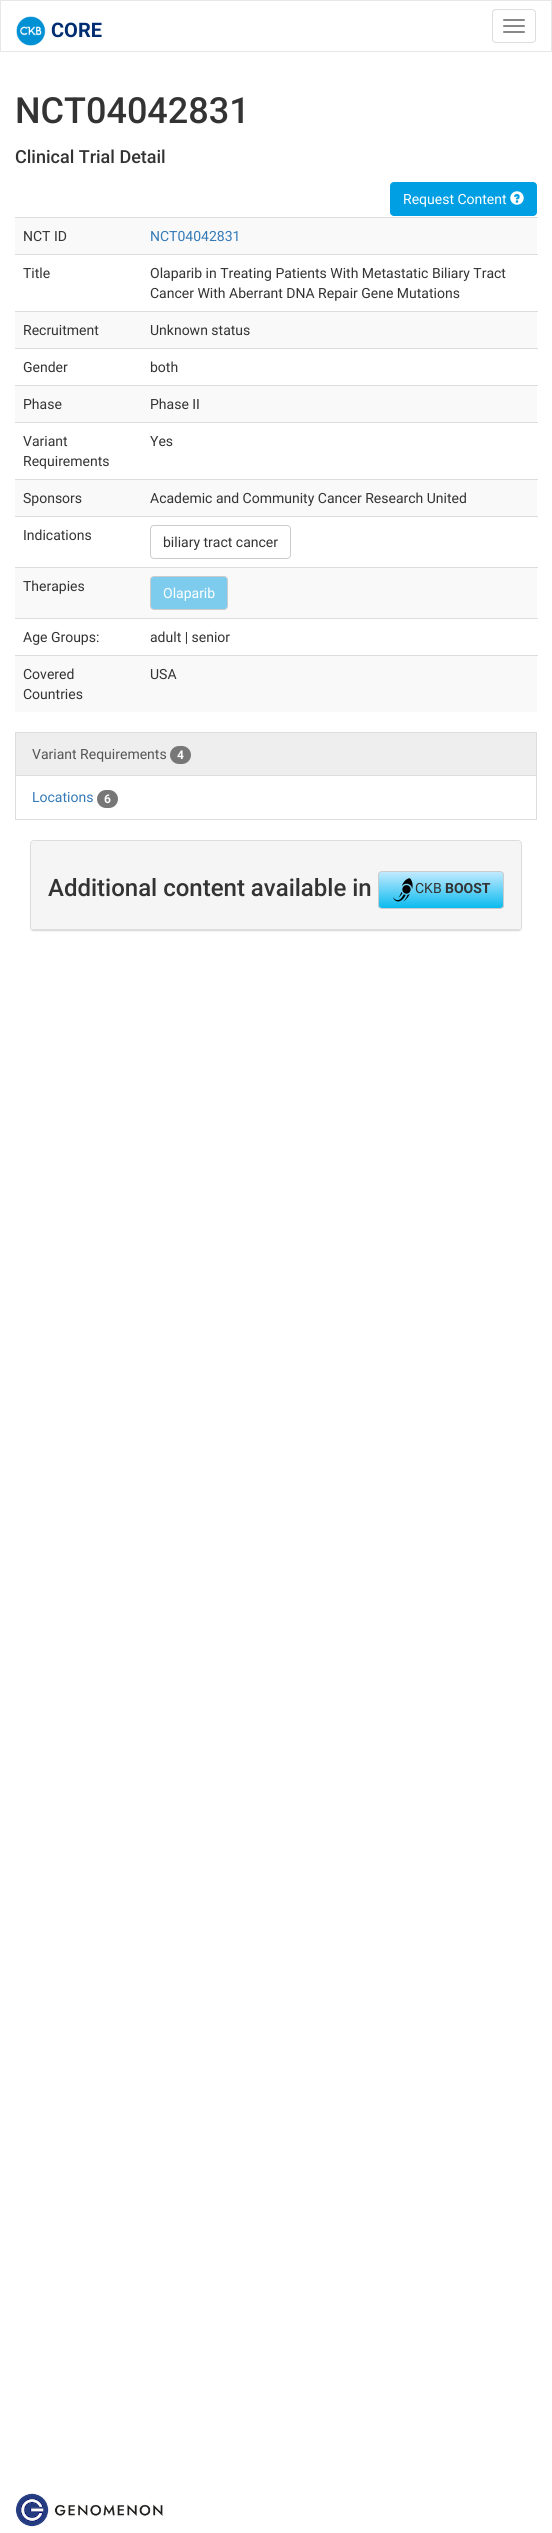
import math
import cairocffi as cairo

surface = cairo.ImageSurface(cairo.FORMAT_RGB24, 552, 2533)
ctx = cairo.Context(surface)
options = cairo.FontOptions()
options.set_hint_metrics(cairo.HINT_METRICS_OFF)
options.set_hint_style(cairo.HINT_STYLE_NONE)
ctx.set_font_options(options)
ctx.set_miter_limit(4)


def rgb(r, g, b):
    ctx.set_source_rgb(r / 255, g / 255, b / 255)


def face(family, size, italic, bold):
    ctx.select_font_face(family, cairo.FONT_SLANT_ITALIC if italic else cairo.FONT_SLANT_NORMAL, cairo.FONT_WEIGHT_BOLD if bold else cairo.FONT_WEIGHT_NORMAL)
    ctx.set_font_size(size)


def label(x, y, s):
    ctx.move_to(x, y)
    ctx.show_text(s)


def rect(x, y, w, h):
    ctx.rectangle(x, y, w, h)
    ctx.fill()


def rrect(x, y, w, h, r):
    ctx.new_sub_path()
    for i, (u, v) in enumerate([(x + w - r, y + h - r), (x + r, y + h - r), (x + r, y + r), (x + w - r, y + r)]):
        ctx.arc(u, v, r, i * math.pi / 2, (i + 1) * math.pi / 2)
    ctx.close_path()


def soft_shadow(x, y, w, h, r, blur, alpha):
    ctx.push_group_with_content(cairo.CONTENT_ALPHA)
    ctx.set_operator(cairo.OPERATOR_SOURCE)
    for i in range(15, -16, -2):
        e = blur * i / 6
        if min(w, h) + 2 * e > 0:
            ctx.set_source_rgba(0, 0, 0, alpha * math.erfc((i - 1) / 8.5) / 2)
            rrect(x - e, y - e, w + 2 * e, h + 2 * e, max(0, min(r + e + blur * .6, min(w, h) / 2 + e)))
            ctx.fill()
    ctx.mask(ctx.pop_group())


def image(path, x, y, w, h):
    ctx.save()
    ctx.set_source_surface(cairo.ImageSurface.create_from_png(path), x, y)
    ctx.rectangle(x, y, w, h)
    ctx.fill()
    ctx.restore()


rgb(255, 255, 255)
ctx.paint()
ctx.rectangle(0.5, 0.5, 551, 51)
rgb(231, 231, 231)
ctx.set_line_width(1)
ctx.stroke()
image('image0.png', 16, 16, 30, 30)
face('Roboto', 20, 0, 1)
rgb(0, 45, 114)
label(51, 37, 'CORE')
rrect(492.5, 9.5, 43, 33, 3.5)
rgb(221, 221, 221)
ctx.stroke()
rgb(136, 136, 136)
rrect(503, 19, 22, 2, 1)
ctx.fill()
rrect(503, 25, 22, 2, 1)
ctx.fill()
rrect(503, 31, 22, 2, 1)
ctx.fill()
face('Roboto Medium', 36, 0, 0)
rgb(51, 51, 51)
label(15, 123, 'NCT04042831')
face('Roboto Medium', 18, 0, 0)
label(15, 163, 'Clinical Trial Detail')
rgb(0, 159, 227)
rrect(390.5, 182.5, 146, 33, 3.5)
ctx.fill_preserve()
ctx.stroke()
face('Roboto', 14, 0, 0)
rgb(255, 255, 255)
label(403, 204, 'Request Content')
image('image1.png', 510, 191, 14, 14)
rgb(249, 249, 249)
rect(15, 218, 522, 36)
rgb(51, 51, 51)
label(23, 241, 'NCT ID')
rgb(221, 221, 221)
rect(15, 217, 523, 1)
rgb(51, 122, 183)
label(150, 241, 'NCT04042831')
rgb(51, 51, 51)
label(23, 278, 'Title')
rgb(221, 221, 221)
rect(15, 254, 523, 1)
rgb(51, 51, 51)
label(150, 278, 'Olaparib in Treating Patients With Metastatic Biliary Tract')
label(150, 298, 'Cancer With Aberrant DNA Repair Gene Mutations')
rgb(249, 249, 249)
rect(15, 312, 522, 36)
rgb(51, 51, 51)
label(23, 335, 'Recruitment')
rgb(221, 221, 221)
rect(15, 311, 523, 1)
rgb(51, 51, 51)
label(150, 335, 'Unknown status')
label(23, 372, 'Gender')
rgb(221, 221, 221)
rect(15, 348, 523, 1)
rgb(51, 51, 51)
label(150, 372, 'both')
rgb(249, 249, 249)
rect(15, 386, 522, 36)
rgb(51, 51, 51)
label(23, 409, 'Phase')
rgb(221, 221, 221)
rect(15, 385, 523, 1)
rgb(51, 51, 51)
label(150, 409, 'Phase II')
label(23, 446, 'Variant')
label(23, 466, 'Requirements')
rgb(221, 221, 221)
rect(15, 422, 523, 1)
rgb(51, 51, 51)
label(150, 446, 'Yes')
rgb(249, 249, 249)
rect(15, 480, 522, 36)
rgb(51, 51, 51)
label(23, 503, 'Sponsors')
rgb(221, 221, 221)
rect(15, 479, 523, 1)
rgb(51, 51, 51)
label(150, 503, 'Academic and Community Cancer Research United')
label(23, 540, 'Indications')
rgb(221, 221, 221)
rect(15, 516, 523, 1)
rrect(150.5, 525.5, 140, 33, 3.5)
rgb(204, 204, 204)
ctx.stroke()
rgb(51, 51, 51)
label(163, 547, 'biliary tract cancer')
rgb(249, 249, 249)
rect(15, 568, 522, 50)
rgb(51, 51, 51)
label(23, 591, 'Therapies')
rgb(221, 221, 221)
rect(15, 567, 523, 1)
rgb(125, 204, 238)
rrect(150.5, 576.5, 77, 33, 3.5)
ctx.fill_preserve()
rgb(204, 204, 204)
ctx.stroke()
rgb(255, 255, 255)
label(163, 598, 'Olaparib')
rgb(51, 51, 51)
label(23, 642, 'Age Groups:')
rgb(221, 221, 221)
rect(15, 618, 523, 1)
rgb(51, 51, 51)
label(150, 642, 'adult | senior')
rgb(249, 249, 249)
rect(15, 656, 522, 56)
rgb(51, 51, 51)
label(23, 679, 'Covered')
label(23, 699, 'Countries')
rgb(221, 221, 221)
rect(15, 655, 523, 1)
rgb(51, 51, 51)
label(150, 679, 'USA')
rgb(238, 238, 238)
ctx.rectangle(15.5, 732.5, 521, 43)
ctx.fill_preserve()
rgb(221, 221, 221)
ctx.stroke()
rgb(85, 85, 85)
label(32, 759, 'Variant Requirements')
rgb(119, 119, 119)
rrect(170, 746, 21, 18, 9)
ctx.fill()
face('Roboto', 12, 0, 1)
rgb(255, 255, 255)
label(177, 759, '4')
ctx.rectangle(15.5, 775.5, 521, 44)
rgb(221, 221, 221)
ctx.stroke()
face('Roboto', 14, 0, 0)
rgb(51, 122, 183)
label(32, 802, 'Locations')
rgb(119, 119, 119)
rrect(97, 790, 21, 18, 9)
ctx.fill()
face('Roboto', 12, 0, 1)
rgb(255, 255, 255)
label(104, 803, '6')
rgb(0, 0, 0)
soft_shadow(30, 841, 492, 91, 4, 0.5, 0.05)
rrect(30.5, 840.5, 491, 90, 3.5)
rgb(221, 221, 221)
ctx.stroke()
rgb(245, 245, 245)
ctx.new_path()
ctx.move_to(34, 841)
ctx.line_to(518, 841)
ctx.curve_to(519.5, 841, 521, 842.5, 521, 844)
ctx.line_to(521, 930)
ctx.line_to(31, 930)
ctx.line_to(31, 844)
ctx.curve_to(31, 842.5, 32.5, 841, 34, 841)
ctx.close_path()
ctx.fill()
rgb(221, 221, 221)
rect(31, 929, 490, 1)
face('Roboto Medium', 24, 0, 0)
rgb(51, 51, 51)
label(48, 896, 'Additional content available in')
ctx.save()
rrect(378, 871, 126, 38, 4)
ctx.clip()
gradient = cairo.LinearGradient(441, 872, 441, 908)
gradient.add_color_stop_rgba(0, 0.757, 0.918, 1, 1)
gradient.add_color_stop_rgba(1, 0.043, 0.733, 0.937, 1)
ctx.set_source(gradient)
rect(378, 872, 126, 36)
ctx.restore()
rrect(378.5, 871.5, 125, 37, 3.5)
rgb(204, 204, 204)
ctx.stroke()
image('image2.png', 393, 878, 20, 24)
face('Roboto', 14, 0, 0)
rgb(51, 51, 51)
label(415, 893, 'CKB')
face('Roboto', 14, 0, 1)
label(445, 893, 'BOOST')
image('image3.png', 15, 2493, 148, 34)
surface.write_to_png('render.png')
